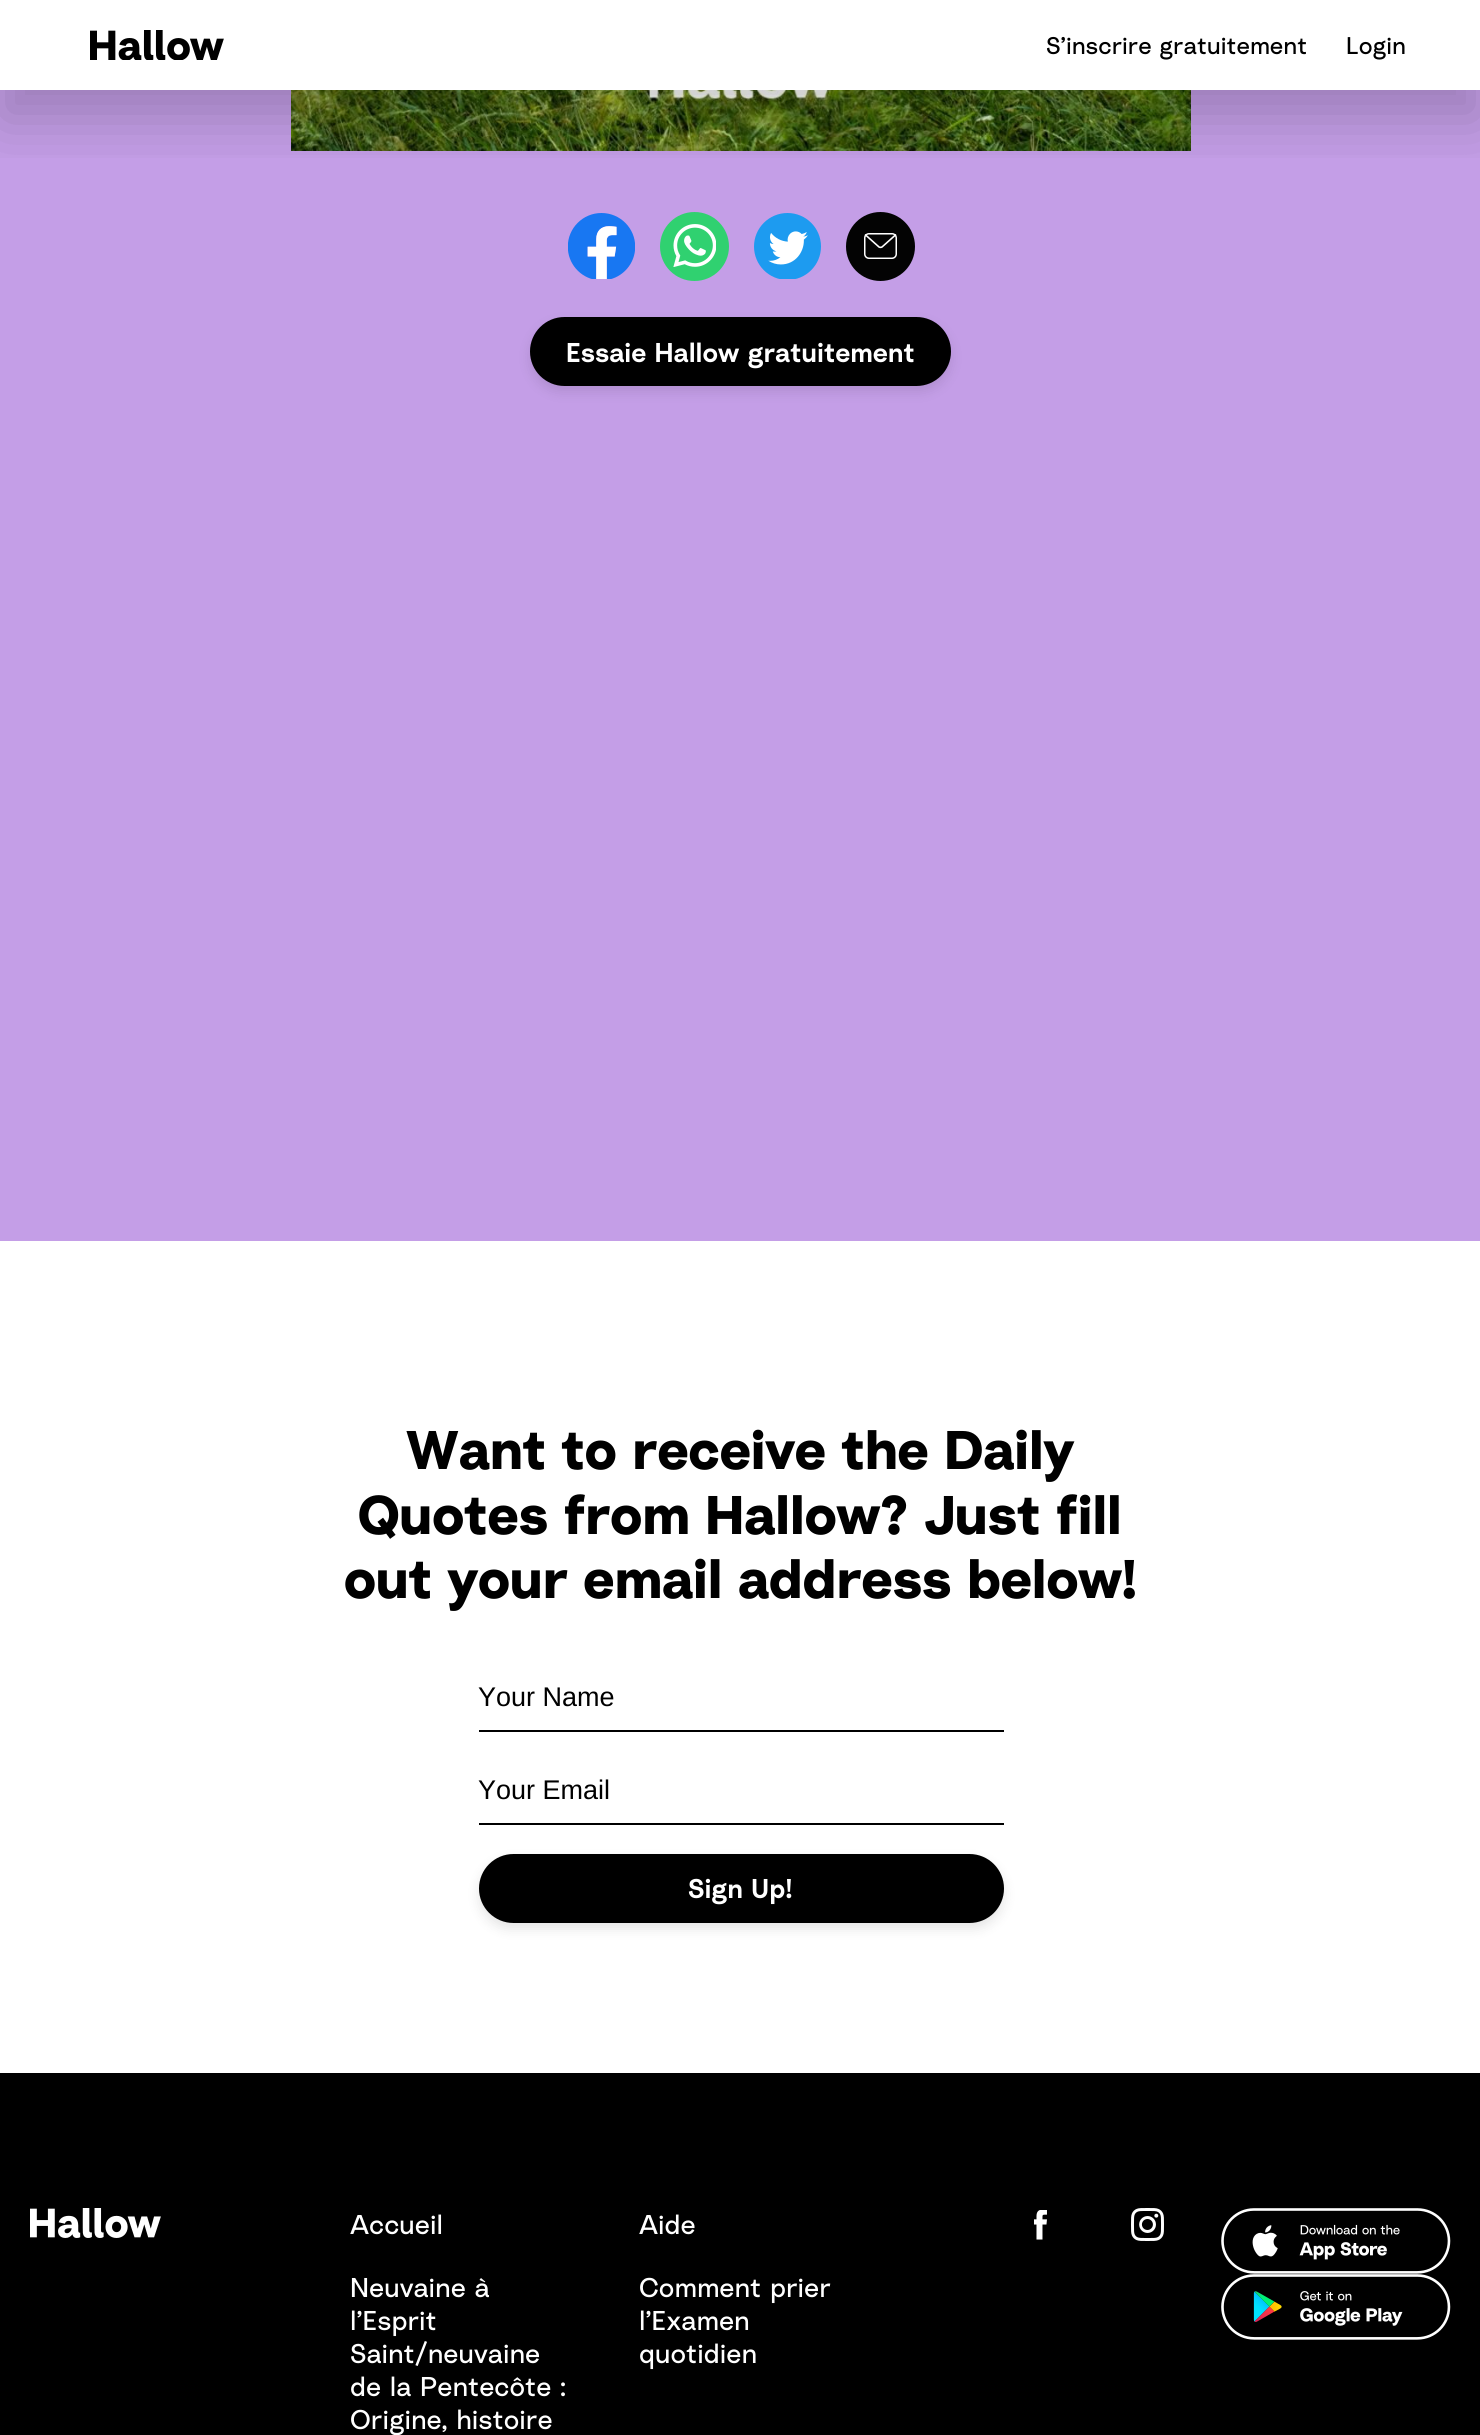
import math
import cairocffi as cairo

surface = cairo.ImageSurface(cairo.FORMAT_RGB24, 1480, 2435)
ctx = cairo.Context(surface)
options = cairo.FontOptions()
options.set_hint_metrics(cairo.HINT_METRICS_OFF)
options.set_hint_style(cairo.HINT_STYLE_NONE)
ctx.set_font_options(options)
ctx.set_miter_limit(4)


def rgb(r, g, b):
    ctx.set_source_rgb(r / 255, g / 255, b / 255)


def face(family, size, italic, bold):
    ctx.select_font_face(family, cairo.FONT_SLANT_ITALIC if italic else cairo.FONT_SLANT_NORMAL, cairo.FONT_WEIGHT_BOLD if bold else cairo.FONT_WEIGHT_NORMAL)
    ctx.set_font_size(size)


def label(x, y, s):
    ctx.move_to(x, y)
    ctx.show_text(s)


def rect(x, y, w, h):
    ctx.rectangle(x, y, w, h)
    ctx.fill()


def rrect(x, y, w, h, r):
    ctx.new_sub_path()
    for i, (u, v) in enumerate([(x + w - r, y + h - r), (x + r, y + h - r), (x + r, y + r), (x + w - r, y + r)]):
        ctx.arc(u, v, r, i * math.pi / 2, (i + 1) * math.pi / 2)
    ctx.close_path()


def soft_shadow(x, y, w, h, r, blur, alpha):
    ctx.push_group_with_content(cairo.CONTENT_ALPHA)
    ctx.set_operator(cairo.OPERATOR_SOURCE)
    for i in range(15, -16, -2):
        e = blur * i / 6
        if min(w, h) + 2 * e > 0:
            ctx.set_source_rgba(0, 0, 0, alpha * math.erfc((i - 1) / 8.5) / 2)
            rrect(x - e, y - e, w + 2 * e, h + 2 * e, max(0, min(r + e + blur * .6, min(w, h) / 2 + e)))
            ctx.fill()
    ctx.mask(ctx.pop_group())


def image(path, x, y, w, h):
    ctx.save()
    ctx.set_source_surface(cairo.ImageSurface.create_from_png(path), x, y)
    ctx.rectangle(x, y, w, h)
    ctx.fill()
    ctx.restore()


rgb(255, 255, 255)
ctx.paint()
rgb(196, 158, 231)
rect(0, 90, 1480, 1151)
image('image1.png', 291, 90, 900, 61)
ctx.save()
ctx.rectangle(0, 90, 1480, 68)
ctx.clip()
rgb(0, 0, 0)
soft_shadow(0, 30, 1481, 90, 0, 30, 0.2)
ctx.restore()
image('image0.png', 90, 30, 134, 30)
face('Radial', 24, 0, 0)
rgb(0, 0, 0)
label(1046, 54, 'S’inscrire gratuitement')
label(1346, 54, 'Login')
image('image2.png', 568, 213, 67, 66)
image('image3.png', 660, 212, 69, 69)
image('image4.png', 754, 213, 67, 66)
rgb(3, 3, 3)
ctx.arc(880.5, 246.5, 34.5, 0, 2 * math.pi)
ctx.fill()
rrect(864.75, 233.75, 31.5, 24.5, 4.25)
rgb(255, 255, 255)
ctx.set_line_width(1.5)
ctx.stroke()
ctx.new_path()
ctx.move_to(865, 234.5)
ctx.line_to(879, 247)
ctx.curve_to(880, 247.5, 881, 247.5, 882, 247)
ctx.line_to(896, 234.5)
ctx.set_line_width(1.6)
ctx.set_line_join(cairo.LINE_JOIN_ROUND)
ctx.stroke()
rgb(0, 0, 0)
soft_shadow(530, 323, 421, 69, 34.5, 6, 0.1)
rgb(0, 0, 0)
rrect(530, 317, 421, 69, 34.5)
ctx.fill()
face('Radial SemiBold', 27, 0, 0)
rgb(255, 255, 255)
label(566, 362, 'Essaie Hallow gratuitement')
face('Radial', 54, 0, 1)
rgb(0, 0, 0)
label(406, 1469, 'Want to receive the Daily')
label(358, 1534, 'Quotes from Hallow? Just fill')
label(344, 1598, 'out your email address below!')
rect(479, 1730, 525, 2)
face('Liberation Sans', 27, 0, 0)
label(478, 1706, 'Your Name')
rect(479, 1823, 525, 2)
label(478, 1799, 'Your Email')
rgb(0, 0, 0)
soft_shadow(479, 1860, 525, 69, 34.5, 6, 0.1)
rgb(0, 0, 0)
rrect(479, 1854, 525, 69, 34.5)
ctx.fill()
face('Radial SemiBold', 27, 0, 0)
rgb(255, 255, 255)
label(688, 1898, 'Sign Up!')
rgb(0, 0, 0)
rect(0, 2073, 1480, 362)
image('image5.png', 30, 2208, 131, 30)
face('Radial', 27, 0, 0)
rgb(255, 255, 255)
label(350, 2234, 'Accueil')
label(639, 2234, 'Aide')
label(350, 2297, 'Neuvaine à')
label(350, 2330, 'l’Esprit')
label(350, 2363, 'Saint/neuvaine')
label(350, 2396, 'de la Pentecôte :')
label(350, 2429, 'Origine, histoire')
label(639, 2297, 'Comment prier')
label(639, 2330, 'l’Examen')
label(639, 2363, 'quotidien')
image('image6.png', 1034, 2210, 13, 30)
image('image7.png', 1131, 2208, 33, 33)
image('image8.png', 1221, 2208, 230, 66)
image('image9.png', 1221, 2274, 230, 66)
surface.write_to_png('render.png')
